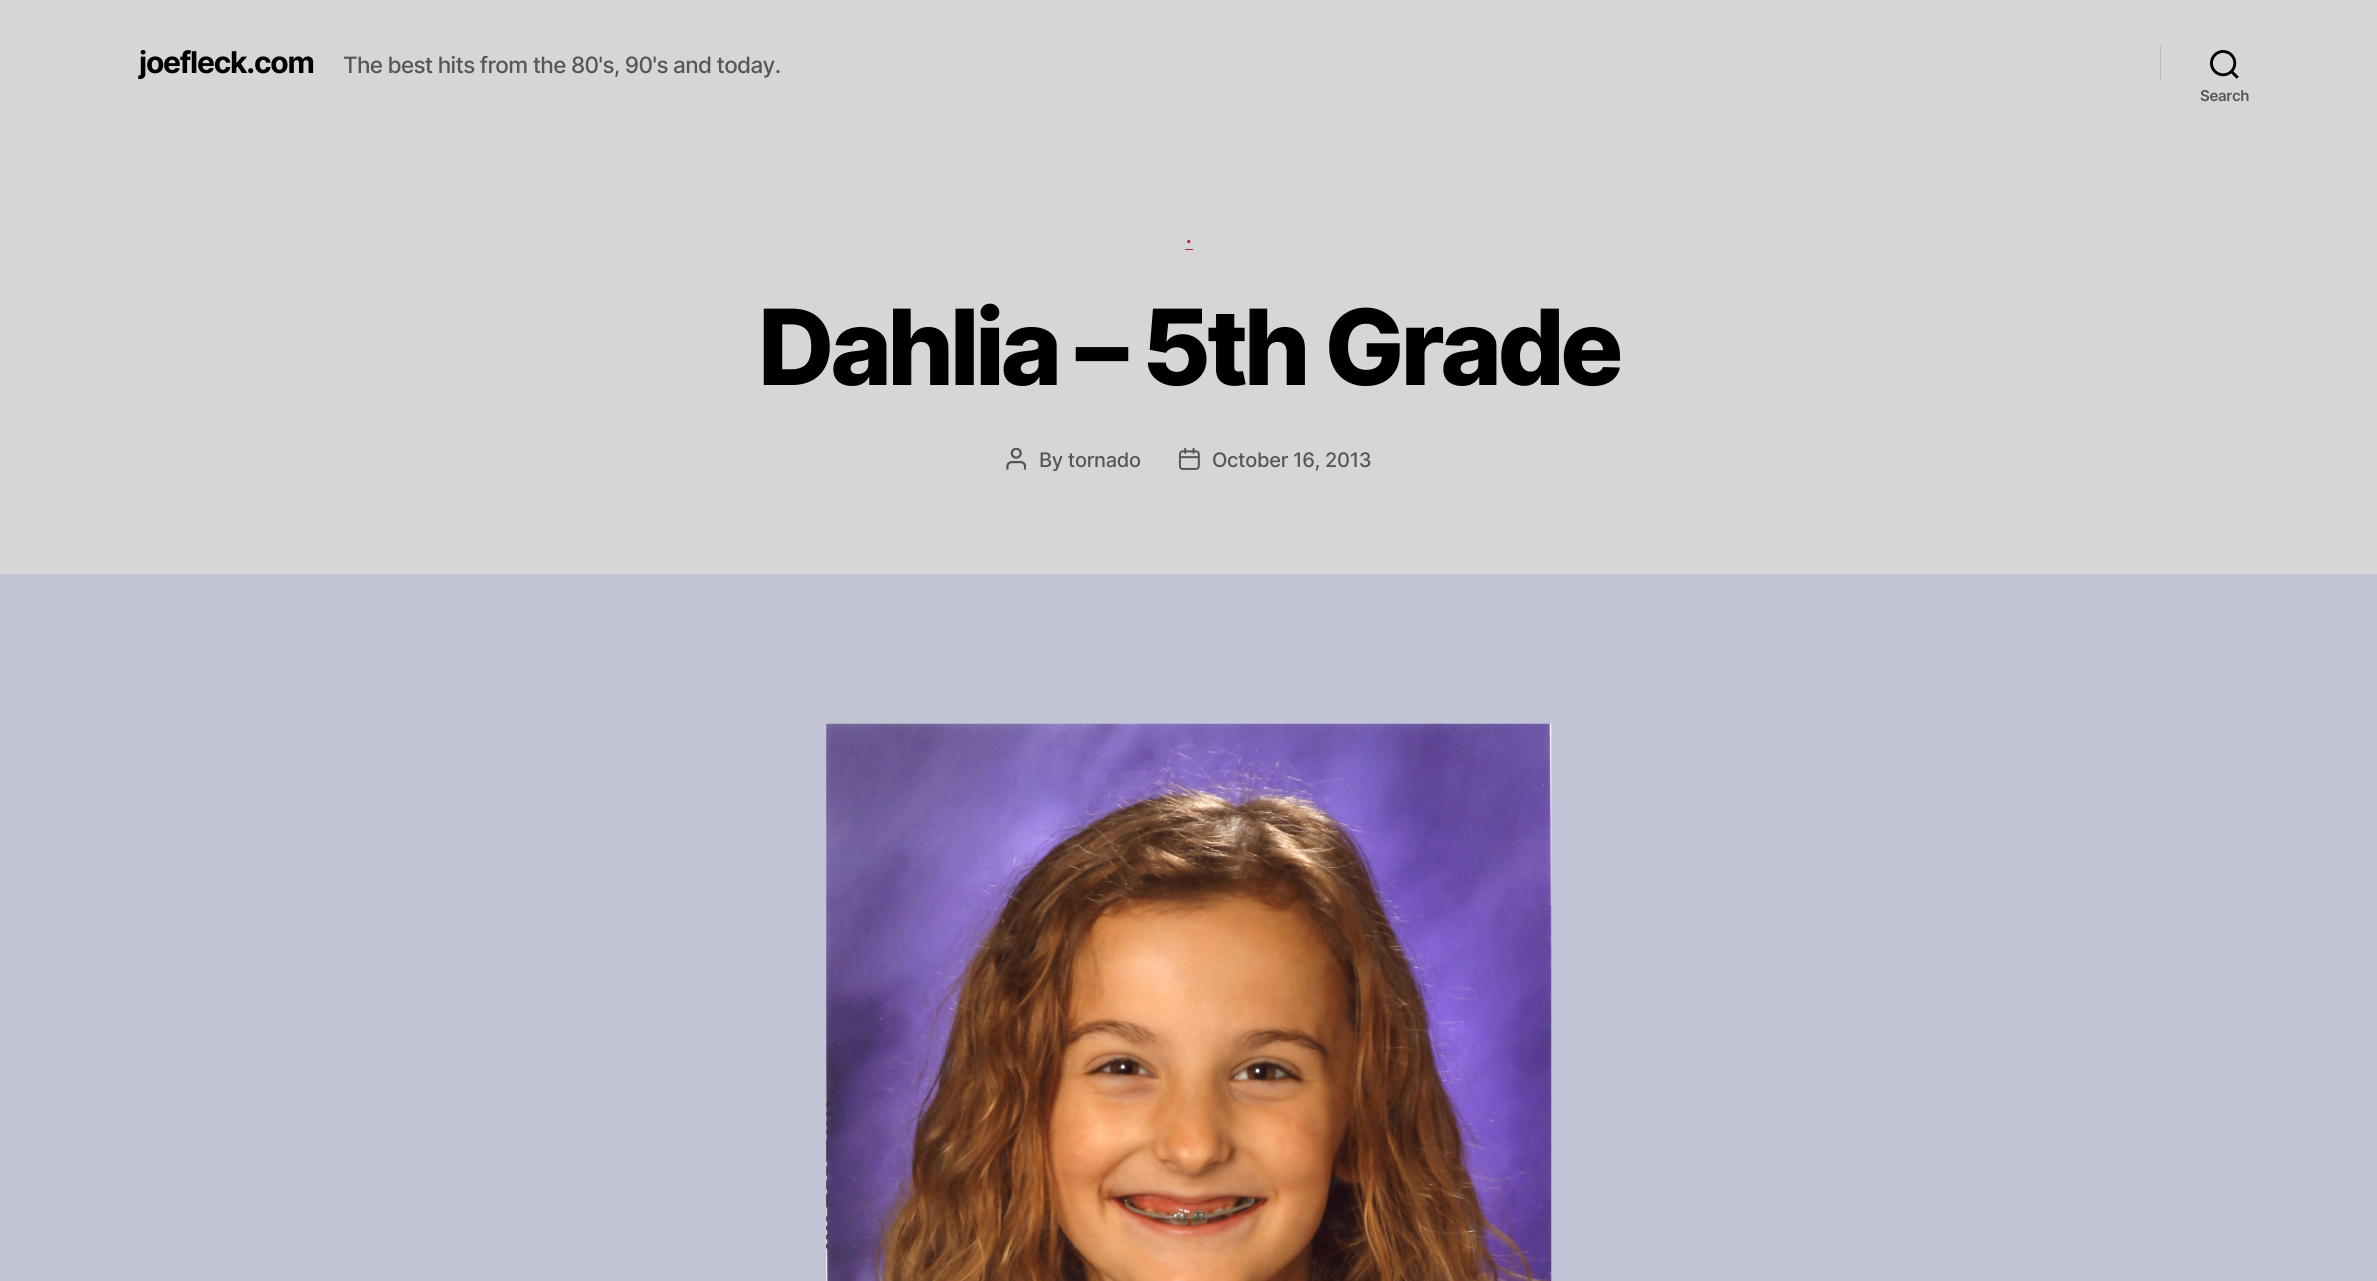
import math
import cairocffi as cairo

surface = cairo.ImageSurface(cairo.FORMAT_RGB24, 2377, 1281)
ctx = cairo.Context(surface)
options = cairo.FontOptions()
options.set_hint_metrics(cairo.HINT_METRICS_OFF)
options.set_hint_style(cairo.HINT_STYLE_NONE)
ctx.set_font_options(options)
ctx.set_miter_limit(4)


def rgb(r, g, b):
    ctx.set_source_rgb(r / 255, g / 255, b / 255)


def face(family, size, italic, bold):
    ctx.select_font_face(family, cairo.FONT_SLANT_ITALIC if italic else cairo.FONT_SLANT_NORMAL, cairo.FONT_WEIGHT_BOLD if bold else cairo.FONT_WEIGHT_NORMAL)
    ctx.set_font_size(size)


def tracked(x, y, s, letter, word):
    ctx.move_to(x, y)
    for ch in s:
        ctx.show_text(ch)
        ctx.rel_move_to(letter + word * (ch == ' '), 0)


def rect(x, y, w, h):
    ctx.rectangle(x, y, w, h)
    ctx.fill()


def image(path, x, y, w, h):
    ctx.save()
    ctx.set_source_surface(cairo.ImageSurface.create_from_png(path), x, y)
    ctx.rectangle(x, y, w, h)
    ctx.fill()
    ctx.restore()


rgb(194, 196, 214)
ctx.paint()
rgb(214, 214, 214)
rect(0, 0, 2377, 574)
face('Inter', 30, 0, 1)
rgb(0, 0, 0)
tracked(139, 73, 'joefleck.com', -1.25, 0)
face('Inter Medium', 22.5, 0, 0)
rgb(86, 86, 86)
tracked(343, 73, 'The best hits from the 80\'s, 90\'s and today.', -0.7, 0)
rgb(183, 183, 183)
rect(2160, 46, 1, 34)
image('image0.png', 2210, 50, 29, 29)
face('Inter SemiBold', 15, 0, 0)
rgb(86, 86, 86)
tracked(2200, 101, 'Search', -0.3, 0)
rgb(176, 37, 74)
rect(1185, 249, 8, 1)
face('Inter', 19, 0, 1)
tracked(1186, 243, '.', 1, 0)
face('Inter ExtraBold', 105, 0, 0)
rgb(0, 0, 0)
tracked(758, 385, 'Dahlia – 5th Grade', -4.4, 0)
image('image1.png', 1006, 448, 20, 22)
face('Inter Medium', 20, 0, 0)
rgb(86, 86, 86)
tracked(1039, 467, 'By tornado', -0.3, 0)
image('image2.png', 1179, 448, 21, 22)
tracked(1212, 467, 'October 16, 2013', -0.3, 0)
image('image3.png', 826, 723, 726, 558)
surface.write_to_png('render.png')
